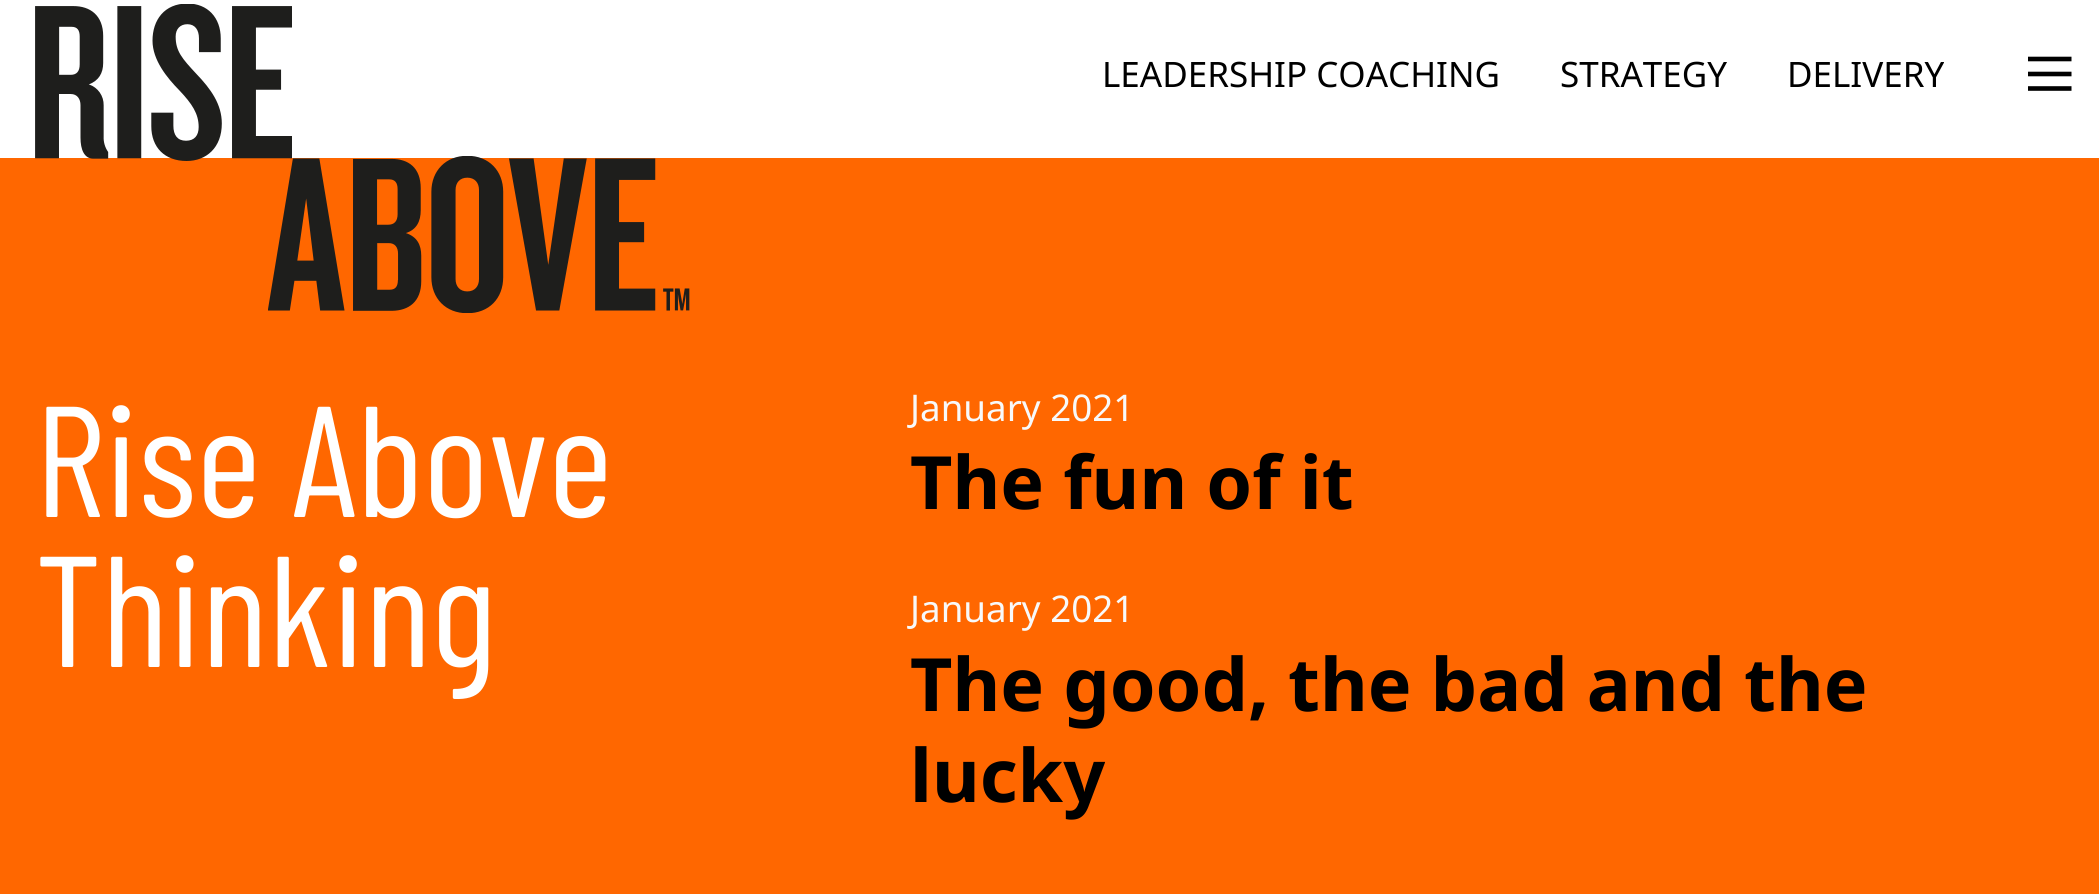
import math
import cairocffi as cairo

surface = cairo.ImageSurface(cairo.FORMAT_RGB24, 2099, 894)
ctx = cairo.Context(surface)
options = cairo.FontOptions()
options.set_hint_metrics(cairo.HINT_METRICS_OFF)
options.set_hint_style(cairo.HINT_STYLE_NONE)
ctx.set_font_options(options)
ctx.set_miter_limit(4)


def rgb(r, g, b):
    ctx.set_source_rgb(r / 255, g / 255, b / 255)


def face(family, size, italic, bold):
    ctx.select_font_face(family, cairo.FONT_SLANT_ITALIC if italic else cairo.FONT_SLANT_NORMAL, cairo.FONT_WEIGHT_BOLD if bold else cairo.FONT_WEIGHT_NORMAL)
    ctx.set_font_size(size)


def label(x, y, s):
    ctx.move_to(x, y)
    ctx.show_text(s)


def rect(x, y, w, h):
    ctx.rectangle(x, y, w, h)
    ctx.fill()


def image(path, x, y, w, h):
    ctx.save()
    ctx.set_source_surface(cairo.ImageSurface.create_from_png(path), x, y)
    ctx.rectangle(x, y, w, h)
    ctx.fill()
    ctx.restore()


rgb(255, 103, 0)
ctx.paint()
rgb(255, 255, 255)
rect(0, 0, 2099, 158)
image('image0.png', 35, 4, 257, 157)
image('image1.png', 268, 156, 422, 157)
face('Noto Sans', 35, 0, 0)
rgb(0, 0, 0)
label(1102, 87, 'LEADERSHIP COACHING')
label(1560, 87, 'STRATEGY')
label(1787, 87, 'DELIVERY')
ctx.new_path()
ctx.move_to(2028, 59)
ctx.line_to(2071.5, 59)
ctx.move_to(2028, 74)
ctx.line_to(2071.5, 74)
ctx.move_to(2028, 88.5)
ctx.line_to(2071.5, 88.5)
ctx.set_line_width(4.6)
ctx.stroke()
face('Barlow Condensed', 157.5, 0, 0)
rgb(255, 255, 255)
label(35, 517, 'Rise Above')
label(35, 667, 'Thinking')
face('Noto Sans', 36.75, 0, 0)
rgb(248, 249, 250)
label(910, 421, 'January 2021')
face('Noto Sans', 73.5, 0, 1)
rgb(0, 0, 0)
label(910, 509, 'The fun of it')
face('Noto Sans', 36.75, 0, 0)
rgb(248, 249, 250)
label(910, 622, 'January 2021')
face('Noto Sans', 73.5, 0, 1)
rgb(0, 0, 0)
label(910, 711, 'The good, the bad and the')
label(910, 802, 'lucky')
surface.write_to_png('render.png')
